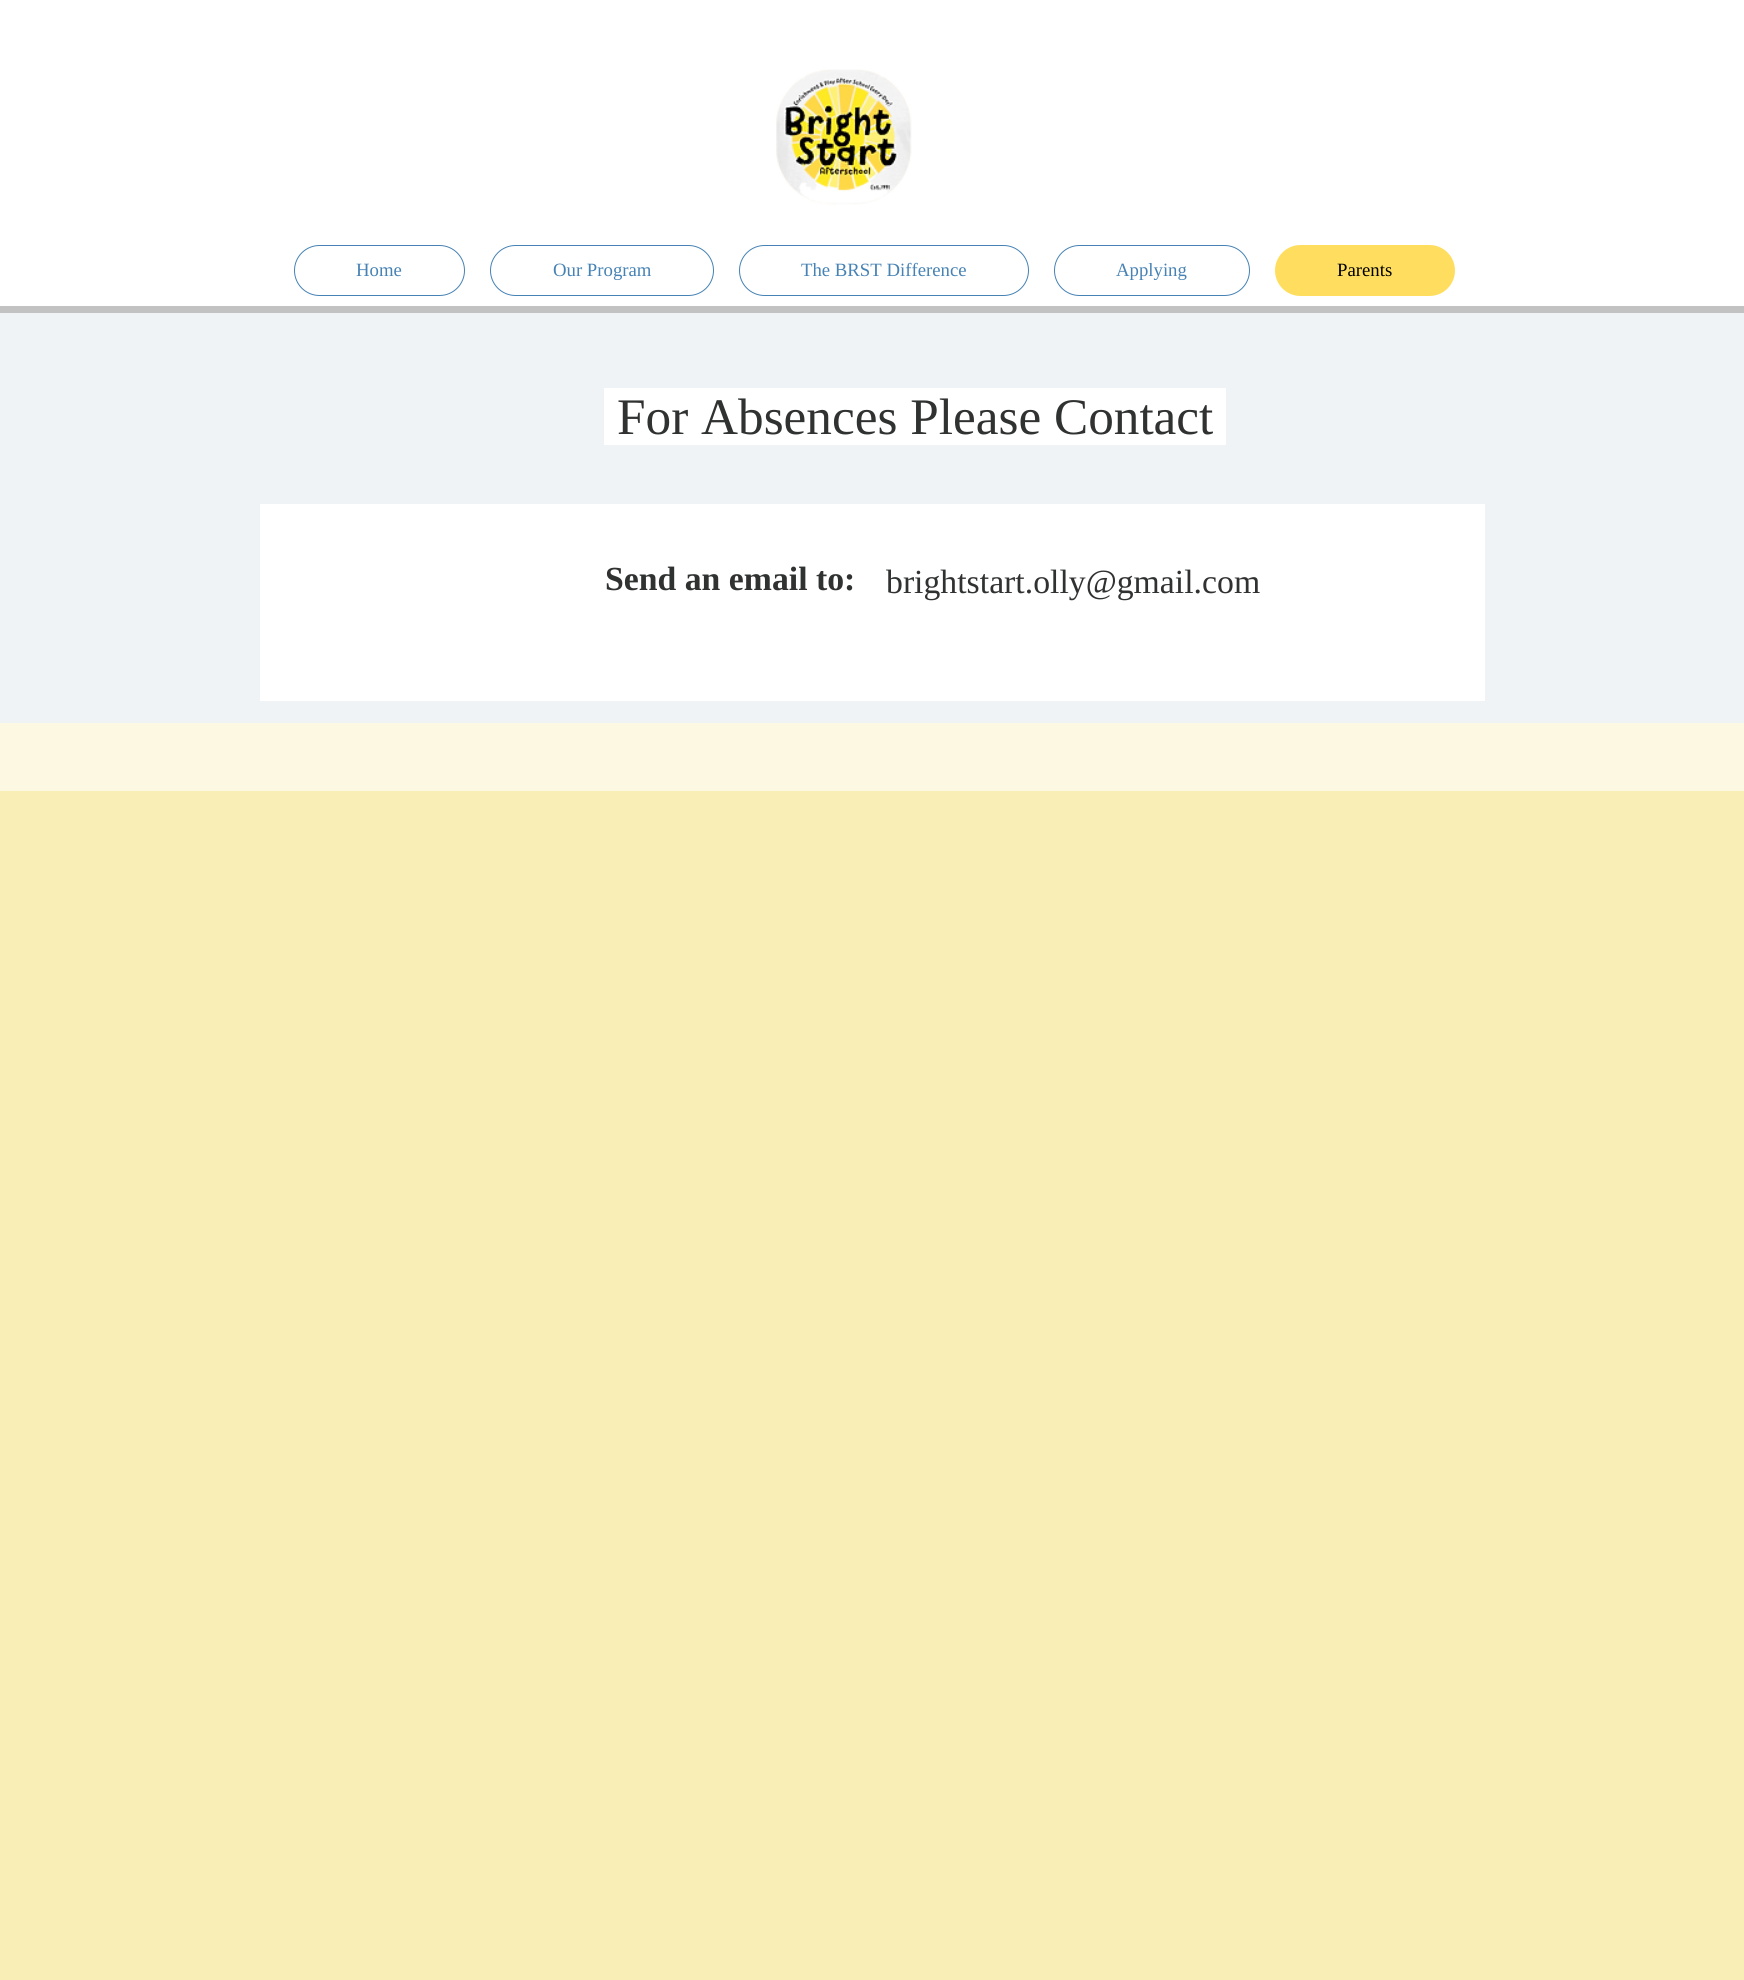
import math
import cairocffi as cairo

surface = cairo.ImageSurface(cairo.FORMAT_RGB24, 1744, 1980)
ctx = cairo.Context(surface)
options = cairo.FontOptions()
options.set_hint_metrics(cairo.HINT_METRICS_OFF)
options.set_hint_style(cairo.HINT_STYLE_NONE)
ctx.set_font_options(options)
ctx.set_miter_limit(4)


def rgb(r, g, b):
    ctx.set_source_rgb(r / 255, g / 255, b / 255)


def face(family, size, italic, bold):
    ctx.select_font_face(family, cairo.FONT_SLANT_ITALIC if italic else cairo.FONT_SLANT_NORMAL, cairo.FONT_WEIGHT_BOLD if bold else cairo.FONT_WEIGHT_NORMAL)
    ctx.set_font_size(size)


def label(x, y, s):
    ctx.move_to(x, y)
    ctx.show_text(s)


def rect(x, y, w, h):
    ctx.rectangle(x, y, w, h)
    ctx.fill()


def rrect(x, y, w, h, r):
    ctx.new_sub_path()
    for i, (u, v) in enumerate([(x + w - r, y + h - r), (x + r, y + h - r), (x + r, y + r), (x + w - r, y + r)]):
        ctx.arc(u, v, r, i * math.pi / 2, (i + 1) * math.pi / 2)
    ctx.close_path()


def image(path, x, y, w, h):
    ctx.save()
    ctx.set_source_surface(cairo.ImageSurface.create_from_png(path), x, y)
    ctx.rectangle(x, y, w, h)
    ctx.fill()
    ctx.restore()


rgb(249, 238, 182)
ctx.paint()
rgb(255, 255, 255)
rect(0, 0, 1744, 306)
rgb(194, 194, 194)
rect(0, 306, 1744, 7)
image('image0.png', 776, 69, 136, 136)
rrect(294.5, 245.5, 170, 50, 25)
rgb(70, 130, 180)
ctx.set_line_width(1)
ctx.stroke()
face('Liberation Serif', 18.75, 0, 0)
label(356, 276, 'Home')
rrect(490.5, 245.5, 223, 50, 25)
ctx.stroke()
label(553, 276, 'Our Program')
rrect(739.5, 245.5, 289, 50, 25)
ctx.stroke()
label(801, 276, 'The BRST Difference')
rrect(1054.5, 245.5, 195, 50, 25)
ctx.stroke()
label(1116, 276, 'Applying')
rgb(255, 222, 95)
rrect(1275, 245, 180, 51, 25.5)
ctx.fill()
rgb(0, 0, 0)
label(1337, 276, 'Parents')
rgb(240, 243, 246)
rect(0, 313, 1744, 410)
rgb(255, 255, 255)
rect(604, 388, 622, 57)
face('Liberation Serif', 51.25, 0, 0)
rgb(48, 49, 49)
label(617, 434, 'For Absences Please Contact')
rgb(255, 255, 255)
rect(260, 504, 1225, 197)
face('Liberation Serif', 33.75, 0, 1)
rgb(48, 49, 49)
label(605, 590, 'Send an email to:')
face('Liberation Serif', 33.75, 0, 0)
label(886, 593, 'brightstart.olly@gmail.com')
rgb(252, 248, 226)
rect(0, 723, 1744, 68)
surface.write_to_png('render.png')
